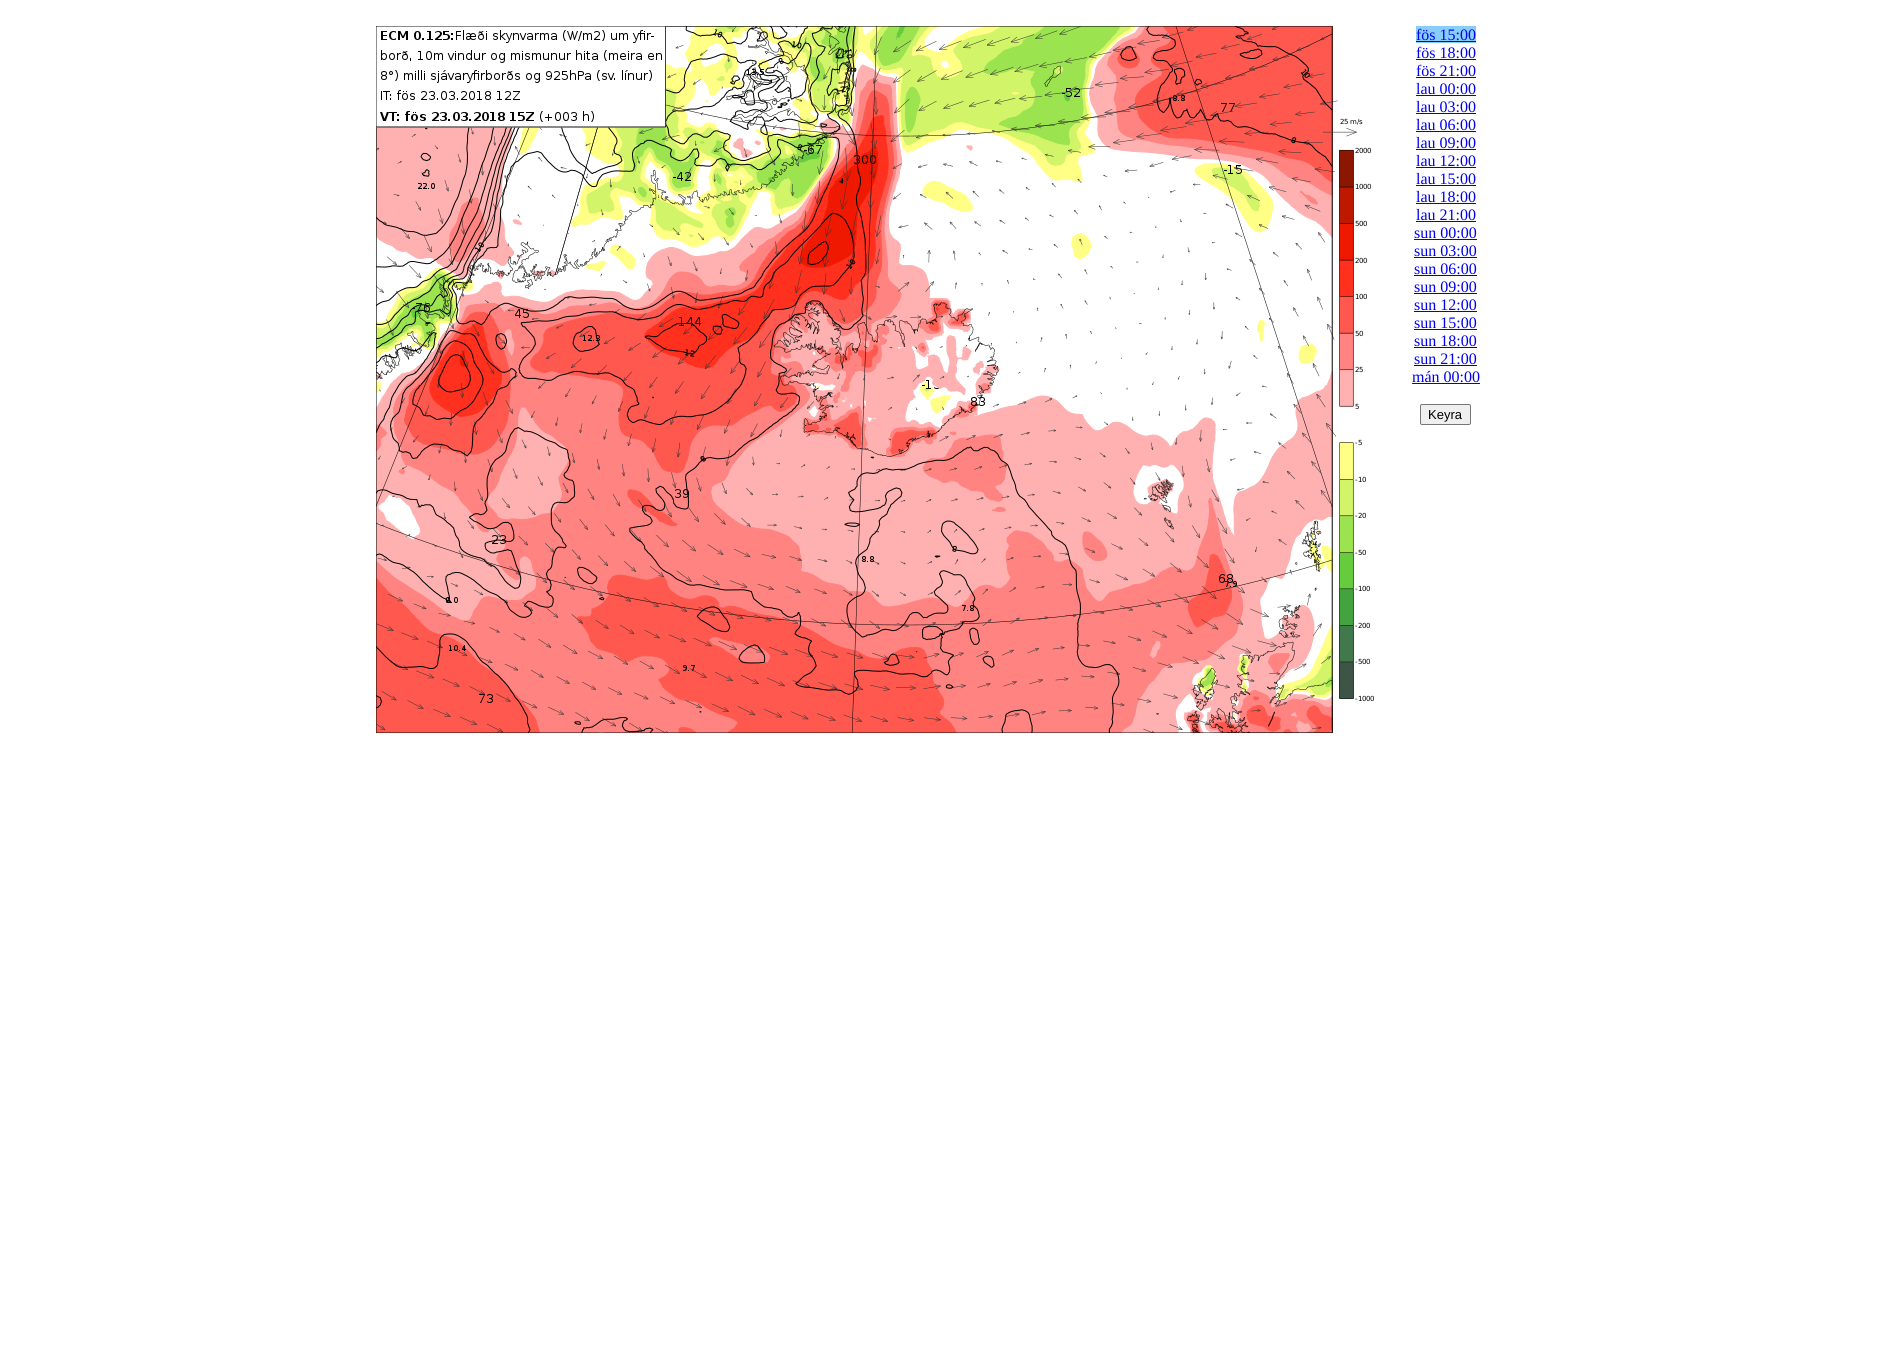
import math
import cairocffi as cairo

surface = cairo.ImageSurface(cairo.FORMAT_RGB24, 1891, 1363)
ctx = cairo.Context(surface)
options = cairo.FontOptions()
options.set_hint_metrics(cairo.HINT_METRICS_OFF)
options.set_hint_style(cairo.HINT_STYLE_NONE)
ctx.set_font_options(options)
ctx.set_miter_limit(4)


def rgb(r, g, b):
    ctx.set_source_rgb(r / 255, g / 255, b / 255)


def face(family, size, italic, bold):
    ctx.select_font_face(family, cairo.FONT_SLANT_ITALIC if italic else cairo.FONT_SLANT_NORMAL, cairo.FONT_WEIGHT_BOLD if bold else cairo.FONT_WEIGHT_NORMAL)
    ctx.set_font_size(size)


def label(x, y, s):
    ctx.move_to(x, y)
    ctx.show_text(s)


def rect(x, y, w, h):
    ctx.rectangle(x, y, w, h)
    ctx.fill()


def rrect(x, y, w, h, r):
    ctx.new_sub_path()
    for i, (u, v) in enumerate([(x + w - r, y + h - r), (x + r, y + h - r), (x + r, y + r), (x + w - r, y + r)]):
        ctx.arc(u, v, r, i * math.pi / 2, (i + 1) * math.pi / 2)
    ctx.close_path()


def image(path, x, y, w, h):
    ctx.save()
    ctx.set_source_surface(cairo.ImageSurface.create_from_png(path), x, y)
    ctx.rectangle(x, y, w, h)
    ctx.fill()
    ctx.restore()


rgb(255, 255, 255)
ctx.paint()
image('image0.png', 376, 26, 998, 707)
rgb(135, 206, 250)
rect(1416, 26, 60, 17)
face('Liberation Serif', 16, 0, 0)
rgb(0, 0, 238)
label(1416, 40, 'fös 15:00')
rect(1416, 41, 60, 1)
label(1416, 58, 'fös 18:00')
rect(1416, 59, 60, 1)
label(1416, 76, 'fös 21:00')
rect(1416, 77, 60, 1)
label(1416, 94, 'lau 00:00')
rect(1416, 95, 60, 1)
label(1416, 112, 'lau 03:00')
rect(1416, 113, 60, 1)
label(1416, 130, 'lau 06:00')
rect(1416, 131, 60, 1)
label(1416, 148, 'lau 09:00')
rect(1416, 149, 60, 1)
label(1416, 166, 'lau 12:00')
rect(1416, 167, 60, 1)
label(1416, 184, 'lau 15:00')
rect(1416, 185, 60, 1)
label(1416, 202, 'lau 18:00')
rect(1416, 203, 60, 1)
label(1416, 220, 'lau 21:00')
rect(1416, 221, 60, 1)
label(1414, 238, 'sun 00:00')
rect(1414, 239, 63, 1)
label(1414, 256, 'sun 03:00')
rect(1414, 257, 63, 1)
label(1414, 274, 'sun 06:00')
rect(1414, 275, 63, 1)
label(1414, 292, 'sun 09:00')
rect(1414, 293, 63, 1)
label(1414, 310, 'sun 12:00')
rect(1414, 311, 63, 1)
label(1414, 328, 'sun 15:00')
rect(1414, 329, 63, 1)
label(1414, 346, 'sun 18:00')
rect(1414, 347, 63, 1)
label(1414, 364, 'sun 21:00')
rect(1414, 365, 63, 1)
label(1412, 382, 'mán 00:00')
rect(1412, 383, 68, 1)
rgb(239, 239, 239)
rrect(1420.5, 404.5, 50, 20, 1.5)
ctx.fill_preserve()
rgb(118, 118, 118)
ctx.set_line_width(1)
ctx.stroke()
face('Liberation Sans', 13, 0, 0)
rgb(0, 0, 0)
label(1428, 419, 'Keyra')
surface.write_to_png('render.png')
